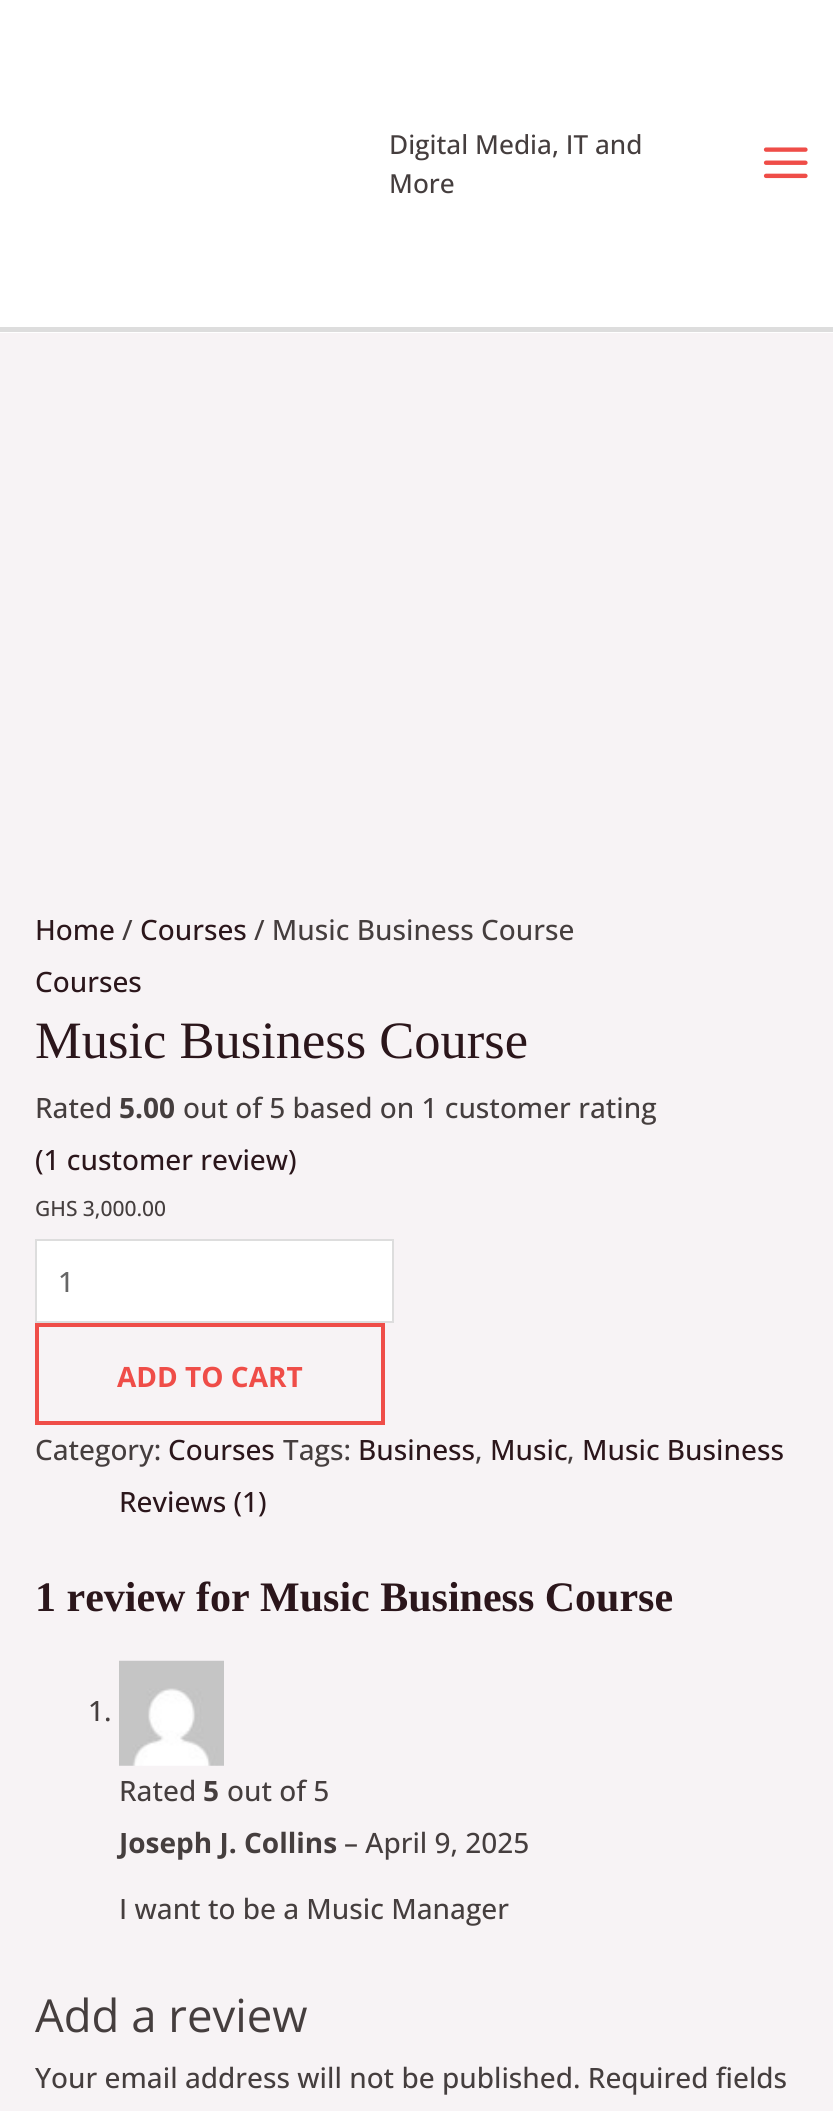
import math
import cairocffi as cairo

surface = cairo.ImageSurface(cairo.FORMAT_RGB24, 833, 2111)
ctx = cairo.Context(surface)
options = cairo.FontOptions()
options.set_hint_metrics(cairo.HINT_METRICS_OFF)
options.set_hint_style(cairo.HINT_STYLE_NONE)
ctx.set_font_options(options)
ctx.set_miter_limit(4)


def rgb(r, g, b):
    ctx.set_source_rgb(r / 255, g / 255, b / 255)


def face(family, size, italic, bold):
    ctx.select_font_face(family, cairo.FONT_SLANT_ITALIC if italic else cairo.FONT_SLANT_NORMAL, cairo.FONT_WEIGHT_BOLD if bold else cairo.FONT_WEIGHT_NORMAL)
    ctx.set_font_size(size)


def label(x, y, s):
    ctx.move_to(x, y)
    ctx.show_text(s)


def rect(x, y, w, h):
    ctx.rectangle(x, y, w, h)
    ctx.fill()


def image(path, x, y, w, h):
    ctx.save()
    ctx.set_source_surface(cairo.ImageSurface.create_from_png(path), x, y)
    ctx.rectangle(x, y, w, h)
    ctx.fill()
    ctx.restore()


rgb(247, 243, 245)
ctx.paint()
rgb(255, 255, 255)
rect(0, 0, 833, 333)
rgb(221, 221, 221)
rect(0, 327, 833, 5)
face('Open Sans Medium', 26.25, 0, 0)
rgb(69, 62, 62)
label(389, 154, 'Digital Media, IT and')
label(389, 193, 'More')
image('image0.png', 763, 147, 45, 32)
face('Open Sans Medium', 28, 0, 0)
rgb(43, 22, 27)
label(35, 940, 'Home')
rgb(69, 62, 62)
label(122, 940, '/')
rgb(43, 22, 27)
label(140, 940, 'Courses')
rgb(69, 62, 62)
label(254, 940, '/ Music Business Course')
rgb(43, 22, 27)
label(35, 992, 'Courses')
face('Liberation Serif', 52.5, 0, 0)
label(35, 1058, 'Music Business Course')
face('Open Sans Medium', 28, 0, 0)
rgb(69, 62, 62)
label(35, 1118, 'Rated')
face('Open Sans', 28, 0, 1)
label(119, 1118, '5.00')
face('Open Sans Medium', 28, 0, 0)
label(183, 1118, 'out of 5 based on 1 customer rating')
rgb(43, 22, 27)
label(35, 1170, '(1 customer review)')
face('Open Sans Medium', 21, 0, 0)
rgb(69, 62, 62)
label(35, 1216, 'GHS 3,000.00')
rgb(255, 255, 255)
ctx.rectangle(36, 1240, 357, 82)
ctx.fill_preserve()
rgb(221, 221, 221)
ctx.stroke()
face('Open Sans Medium', 28, 0, 0)
rgb(102, 102, 102)
label(58, 1292, '1')
ctx.rectangle(37, 1325, 346, 98)
rgb(239, 77, 72)
ctx.set_line_width(4)
ctx.stroke()
face('Open Sans', 28, 0, 1)
label(117, 1387, 'ADD TO CART')
face('Open Sans Medium', 28, 0, 0)
rgb(69, 62, 62)
label(35, 1460, 'Category:')
rgb(43, 22, 27)
label(168, 1460, 'Courses')
rgb(69, 62, 62)
label(283, 1460, 'Tags:')
rgb(43, 22, 27)
label(358, 1460, 'Business')
rgb(69, 62, 62)
label(475, 1460, ',')
rgb(43, 22, 27)
label(490, 1460, 'Music')
rgb(69, 62, 62)
label(567, 1460, ',')
rgb(43, 22, 27)
label(582, 1460, 'Music Business')
label(119, 1512, 'Reviews (1)')
face('Liberation Serif', 42, 0, 1)
label(35, 1611, '1 review for Music Business Course')
face('Open Sans Medium', 28, 0, 0)
rgb(69, 62, 62)
label(88, 1721, '1.')
image('image1.png', 119, 1660, 105, 106)
label(119, 1801, 'Rated')
face('Open Sans', 28, 0, 1)
label(203, 1801, '5')
face('Open Sans Medium', 28, 0, 0)
label(227, 1801, 'out of 5')
face('Open Sans', 28, 0, 1)
label(119, 1853, 'Joseph J. Collins')
face('Open Sans Medium', 28, 0, 0)
label(344, 1853, '– April 9, 2025')
label(119, 1919, 'I want to be a Music Manager')
face('Open Sans', 45.5, 0, 0)
label(35, 2032, 'Add a review')
face('Open Sans Medium', 28, 0, 0)
label(35, 2088, 'Your email address will not be published. Required fields')
surface.write_to_png('render.png')
